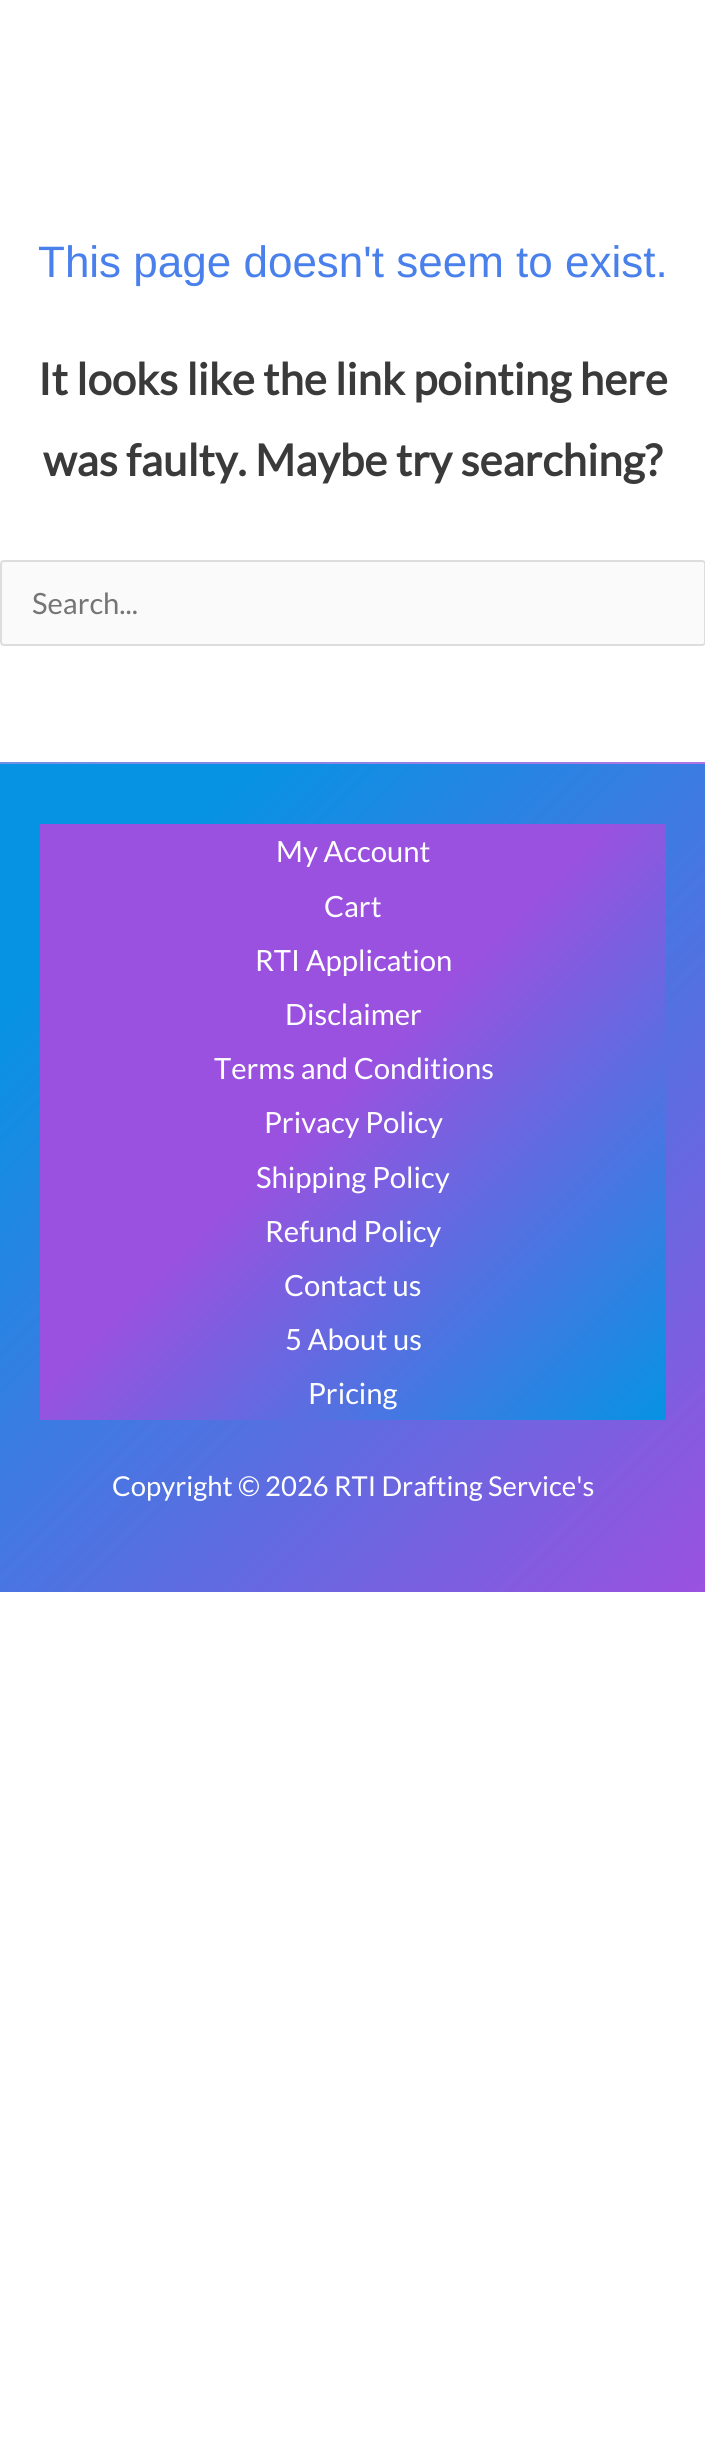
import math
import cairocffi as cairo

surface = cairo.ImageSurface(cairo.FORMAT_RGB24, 705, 2459)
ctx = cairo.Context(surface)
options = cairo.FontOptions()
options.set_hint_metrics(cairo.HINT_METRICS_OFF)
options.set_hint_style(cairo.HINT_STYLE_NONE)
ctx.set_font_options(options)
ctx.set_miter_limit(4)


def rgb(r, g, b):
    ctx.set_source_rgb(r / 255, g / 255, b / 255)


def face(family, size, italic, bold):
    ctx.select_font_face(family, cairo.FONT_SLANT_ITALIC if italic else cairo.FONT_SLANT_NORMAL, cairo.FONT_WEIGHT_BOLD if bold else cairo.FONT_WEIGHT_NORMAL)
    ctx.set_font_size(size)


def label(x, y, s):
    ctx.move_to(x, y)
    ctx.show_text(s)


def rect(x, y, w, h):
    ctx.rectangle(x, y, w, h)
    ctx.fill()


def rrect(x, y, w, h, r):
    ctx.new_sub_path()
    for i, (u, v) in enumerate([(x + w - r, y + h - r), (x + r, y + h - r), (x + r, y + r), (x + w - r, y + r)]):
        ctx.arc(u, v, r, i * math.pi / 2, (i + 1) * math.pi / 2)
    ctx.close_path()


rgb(255, 255, 255)
ctx.paint()
face('Liberation Sans', 44, 0, 0)
rgb(74, 128, 236)
label(38, 277, 'This page doesn\'t seem to exist.')
face('Lato', 43.75, 0, 1)
rgb(58, 58, 58)
label(38, 395, 'It looks like the link pointing here')
label(43, 476, 'was faulty. Maybe try searching?')
rgb(250, 250, 250)
rrect(1, 561, 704, 84, 3)
ctx.fill_preserve()
rgb(221, 221, 221)
ctx.stroke()
face('Lato', 29.25, 0, 0)
rgb(117, 117, 117)
label(32, 614, 'Search...')
gradient = cairo.LinearGradient(-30, -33, 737, 734)
gradient.add_color_stop_rgba(0.16, 0.22, 0.663, 0.914, 1)
gradient.add_color_stop_rgba(1, 0.686, 0.455, 0.902, 1)
ctx.set_source(gradient)
rect(0, 762, 705, 2)
gradient = cairo.LinearGradient(-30, 795, 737, 1562)
gradient.add_color_stop_rgba(0.16, 0.024, 0.576, 0.89, 1)
gradient.add_color_stop_rgba(1, 0.608, 0.318, 0.878, 1)
ctx.set_source(gradient)
rect(0, 764, 705, 828)
gradient = cairo.LinearGradient(48, 817, 659, 1428)
gradient.add_color_stop_rgba(0.46, 0.608, 0.318, 0.878, 1)
gradient.add_color_stop_rgba(1, 0.024, 0.576, 0.89, 1)
ctx.set_source(gradient)
rect(40, 824, 626, 596)
rgb(255, 255, 255)
label(276, 862, 'My Account')
label(324, 917, 'Cart')
label(255, 971, 'RTI Application')
label(285, 1025, 'Disclaimer')
label(214, 1079, 'Terms and Conditions')
label(264, 1133, 'Privacy Policy')
label(256, 1188, 'Shipping Policy')
label(265, 1242, 'Refund Policy')
label(284, 1296, 'Contact us')
label(285, 1350, '5 About us')
label(308, 1404, 'Pricing')
face('Lato', 27.4, 0, 0)
label(112, 1496, 'Copyright © 2026 RTI Drafting Service\'s')
surface.write_to_png('render.png')
